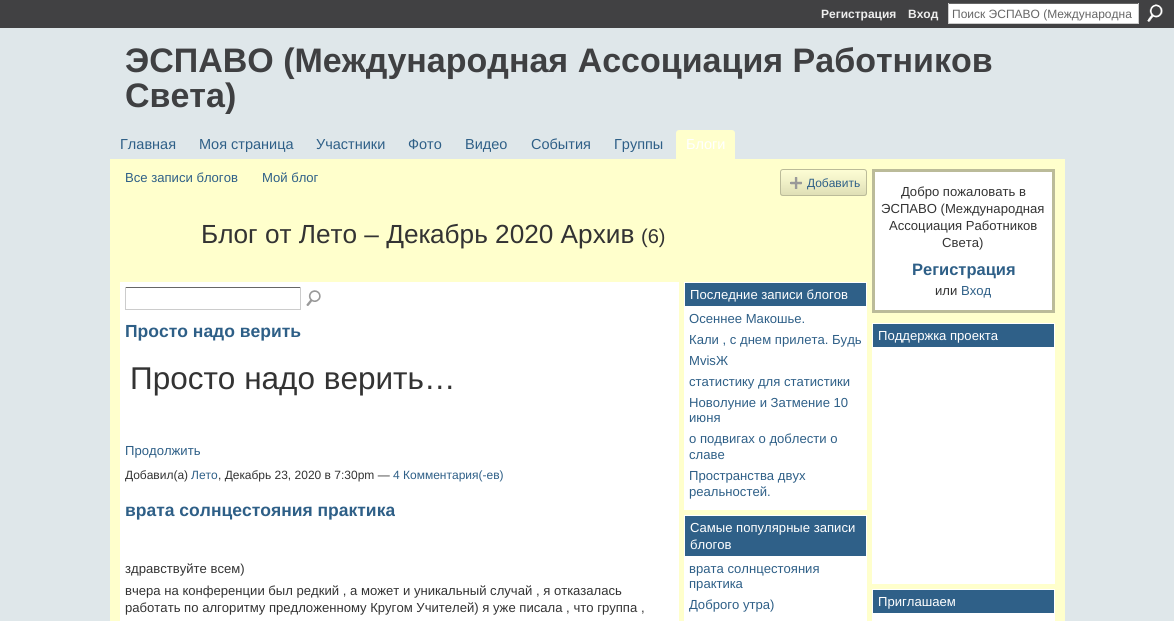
import math
import cairocffi as cairo

surface = cairo.ImageSurface(cairo.FORMAT_RGB24, 1174, 621)
ctx = cairo.Context(surface)
options = cairo.FontOptions()
options.set_hint_metrics(cairo.HINT_METRICS_OFF)
options.set_hint_style(cairo.HINT_STYLE_NONE)
ctx.set_font_options(options)
ctx.set_miter_limit(4)


def rgb(r, g, b):
    ctx.set_source_rgb(r / 255, g / 255, b / 255)


def face(family, size, italic, bold):
    ctx.select_font_face(family, cairo.FONT_SLANT_ITALIC if italic else cairo.FONT_SLANT_NORMAL, cairo.FONT_WEIGHT_BOLD if bold else cairo.FONT_WEIGHT_NORMAL)
    ctx.set_font_size(size)


def label(x, y, s):
    ctx.move_to(x, y)
    ctx.show_text(s)


def rect(x, y, w, h):
    ctx.rectangle(x, y, w, h)
    ctx.fill()


def rrect(x, y, w, h, r):
    ctx.new_sub_path()
    for i, (u, v) in enumerate([(x + w - r, y + h - r), (x + r, y + h - r), (x + r, y + r), (x + w - r, y + r)]):
        ctx.arc(u, v, r, i * math.pi / 2, (i + 1) * math.pi / 2)
    ctx.close_path()


def image(path, x, y, w, h):
    ctx.save()
    ctx.set_source_surface(cairo.ImageSurface.create_from_png(path), x, y)
    ctx.rectangle(x, y, w, h)
    ctx.fill()
    ctx.restore()


rgb(223, 231, 234)
ctx.paint()
rgb(65, 65, 67)
rect(0, 0, 1174, 28)
face('Liberation Sans', 12, 0, 1)
rgb(238, 238, 238)
label(821, 18, 'Регистрация')
label(908, 18, 'Вход')
rgb(255, 255, 255)
rect(949, 4, 189, 19)
rgb(102, 102, 102)
rect(948, 3, 191, 1)
rgb(204, 204, 204)
rect(1138, 3, 1, 21)
rect(948, 23, 191, 1)
rect(948, 3, 1, 21)
face('Liberation Sans', 12, 0, 0)
rgb(102, 102, 102)
label(952, 18, 'Поиск ЭСПАВО (Международна')
image('image0.png', 1147, 4, 16, 18)
face('Liberation Sans', 34, 0, 1)
rgb(63, 64, 66)
label(125, 72, 'ЭСПАВО (Международная Ассоциация Работников')
ctx.save()
ctx.rectangle(110, 28, 955, 86)
ctx.clip()
label(125, 107, 'Света)')
ctx.restore()
face('Liberation Sans', 14.5, 0, 0)
rgb(46, 95, 135)
label(120, 149, 'Главная')
label(199, 149, 'Моя страница')
label(316, 149, 'Участники')
label(408, 149, 'Фото')
label(465, 149, 'Видео')
label(531, 149, 'События')
label(614, 149, 'Группы')
rgb(255, 255, 204)
ctx.new_path()
ctx.move_to(679, 130)
ctx.line_to(732, 130)
ctx.curve_to(733.5, 130, 735, 131.5, 735, 133)
ctx.line_to(735, 159)
ctx.line_to(676, 159)
ctx.line_to(676, 133)
ctx.curve_to(676, 131.5, 677.5, 130, 679, 130)
ctx.close_path()
ctx.fill()
rgb(255, 255, 255)
label(686, 149, 'Блоги')
rgb(255, 255, 204)
rect(110, 159, 955, 462)
face('Liberation Sans', 13.1, 0, 0)
rgb(46, 95, 135)
label(125, 182, 'Все записи блогов')
label(262, 182, 'Мой блог')
image('image1.png', 780, 170, 87, 26)
rrect(780.5, 169.5, 86, 26, 2.5)
rgb(187, 187, 153)
ctx.set_line_width(1)
ctx.stroke()
image('image2.png', 790, 177, 12, 12)
face('Liberation Sans', 12, 0, 0)
rgb(46, 95, 135)
label(807, 187, 'Добавить')
face('Liberation Sans', 26.2, 0, 0)
rgb(51, 51, 51)
label(201, 243, 'Блог от Лето – Декабрь 2020 Архив')
face('Liberation Sans', 20, 0, 0)
label(641, 243, '(6)')
rgb(255, 255, 255)
rect(120, 282, 559, 339)
rgb(102, 102, 102)
rect(125, 287, 176, 1)
rgb(204, 204, 204)
rect(300, 287, 1, 23)
rect(125, 309, 176, 1)
rect(125, 287, 1, 23)
image('image3.png', 306, 290, 15, 16)
face('Liberation Sans', 17.5, 0, 1)
rgb(46, 95, 135)
label(125, 337, 'Просто надо верить')
face('Liberation Sans', 31.5, 0, 0)
rgb(51, 51, 51)
label(130, 389, 'Просто надо верить…')
face('Liberation Sans', 13.1, 0, 0)
rgb(46, 95, 135)
label(125, 455, 'Продолжить')
face('Liberation Sans', 12, 0, 0)
rgb(51, 51, 51)
label(125, 479, 'Добавил(а)')
rgb(46, 95, 135)
label(191, 479, 'Лето')
rgb(51, 51, 51)
label(218, 479, ', Декабрь 23, 2020 в 7:30pm —')
rgb(46, 95, 135)
label(393, 479, '4 Комментария(-ев)')
face('Liberation Sans', 17.5, 0, 1)
label(125, 516, 'врата солнцестояния практика')
face('Liberation Sans', 13.1, 0, 0)
rgb(51, 51, 51)
label(125, 573, 'здравствуйте всем)')
label(125, 595, 'вчера на конференции был редкий , а может и уникальный случай , я отказалась')
label(125, 612, 'работать по алгоритму предложенному Кругом Учителей) я уже писала , что группа ,')
rgb(47, 96, 136)
rect(685, 283, 181, 23)
rgb(255, 255, 255)
rect(684, 282, 183, 1)
rect(866, 282, 1, 24)
rect(684, 282, 1, 24)
label(690, 299, 'Последние записи блогов')
rect(684, 306, 183, 204)
rgb(46, 95, 135)
label(689, 323, 'Осеннее Макошье.')
label(689, 344, 'Кали , с днем прилета. Будь')
label(689, 365, 'МvisЖ')
label(689, 386, 'статистику для статистики')
label(689, 407, 'Новолуние и Затмение 10')
label(689, 422, 'июня')
label(689, 443, 'о подвигах о доблести о')
label(689, 459, 'славе')
label(689, 480, 'Пространства двух')
label(689, 496, 'реальностей.')
rgb(47, 96, 136)
rect(685, 516, 181, 40)
rgb(255, 255, 255)
rect(684, 515, 183, 1)
rect(866, 515, 1, 41)
rect(684, 515, 1, 41)
label(690, 532, 'Самые популярные записи')
label(690, 549, 'блогов')
rect(684, 556, 183, 65)
rgb(46, 95, 135)
label(689, 573, 'врата солнцестояния')
label(689, 588, 'практика')
ctx.save()
ctx.rectangle(689, 597, 173, 16)
ctx.clip()
label(689, 609, 'Доброго утра)')
ctx.restore()
rgb(255, 255, 255)
ctx.rectangle(873.5, 170.5, 180, 141)
ctx.fill_preserve()
rgb(187, 187, 153)
ctx.set_line_width(3)
ctx.stroke()
rgb(51, 51, 51)
label(901, 196, 'Добро пожаловать в')
label(881, 213, 'ЭСПАВО (Международная')
label(889, 230, 'Ассоциация Работников')
label(942, 247, 'Света)')
face('Liberation Sans', 16.5, 0, 1)
rgb(46, 95, 135)
label(912, 275, 'Регистрация')
face('Liberation Sans', 13.1, 0, 0)
rgb(51, 51, 51)
label(935, 295, 'или')
rgb(46, 95, 135)
label(961, 295, 'Вход')
rgb(47, 96, 136)
rect(873, 324, 181, 23)
rgb(255, 255, 255)
rect(872, 323, 183, 1)
rect(1054, 323, 1, 24)
rect(872, 323, 1, 24)
label(878, 340, 'Поддержка проекта')
rect(872, 347, 183, 237)
rgb(47, 96, 136)
rect(873, 590, 181, 23)
rgb(255, 255, 255)
rect(872, 589, 183, 1)
rect(1054, 589, 1, 24)
rect(872, 589, 1, 24)
label(878, 606, 'Приглашаем')
rect(872, 613, 183, 8)
surface.write_to_png('render.png')
